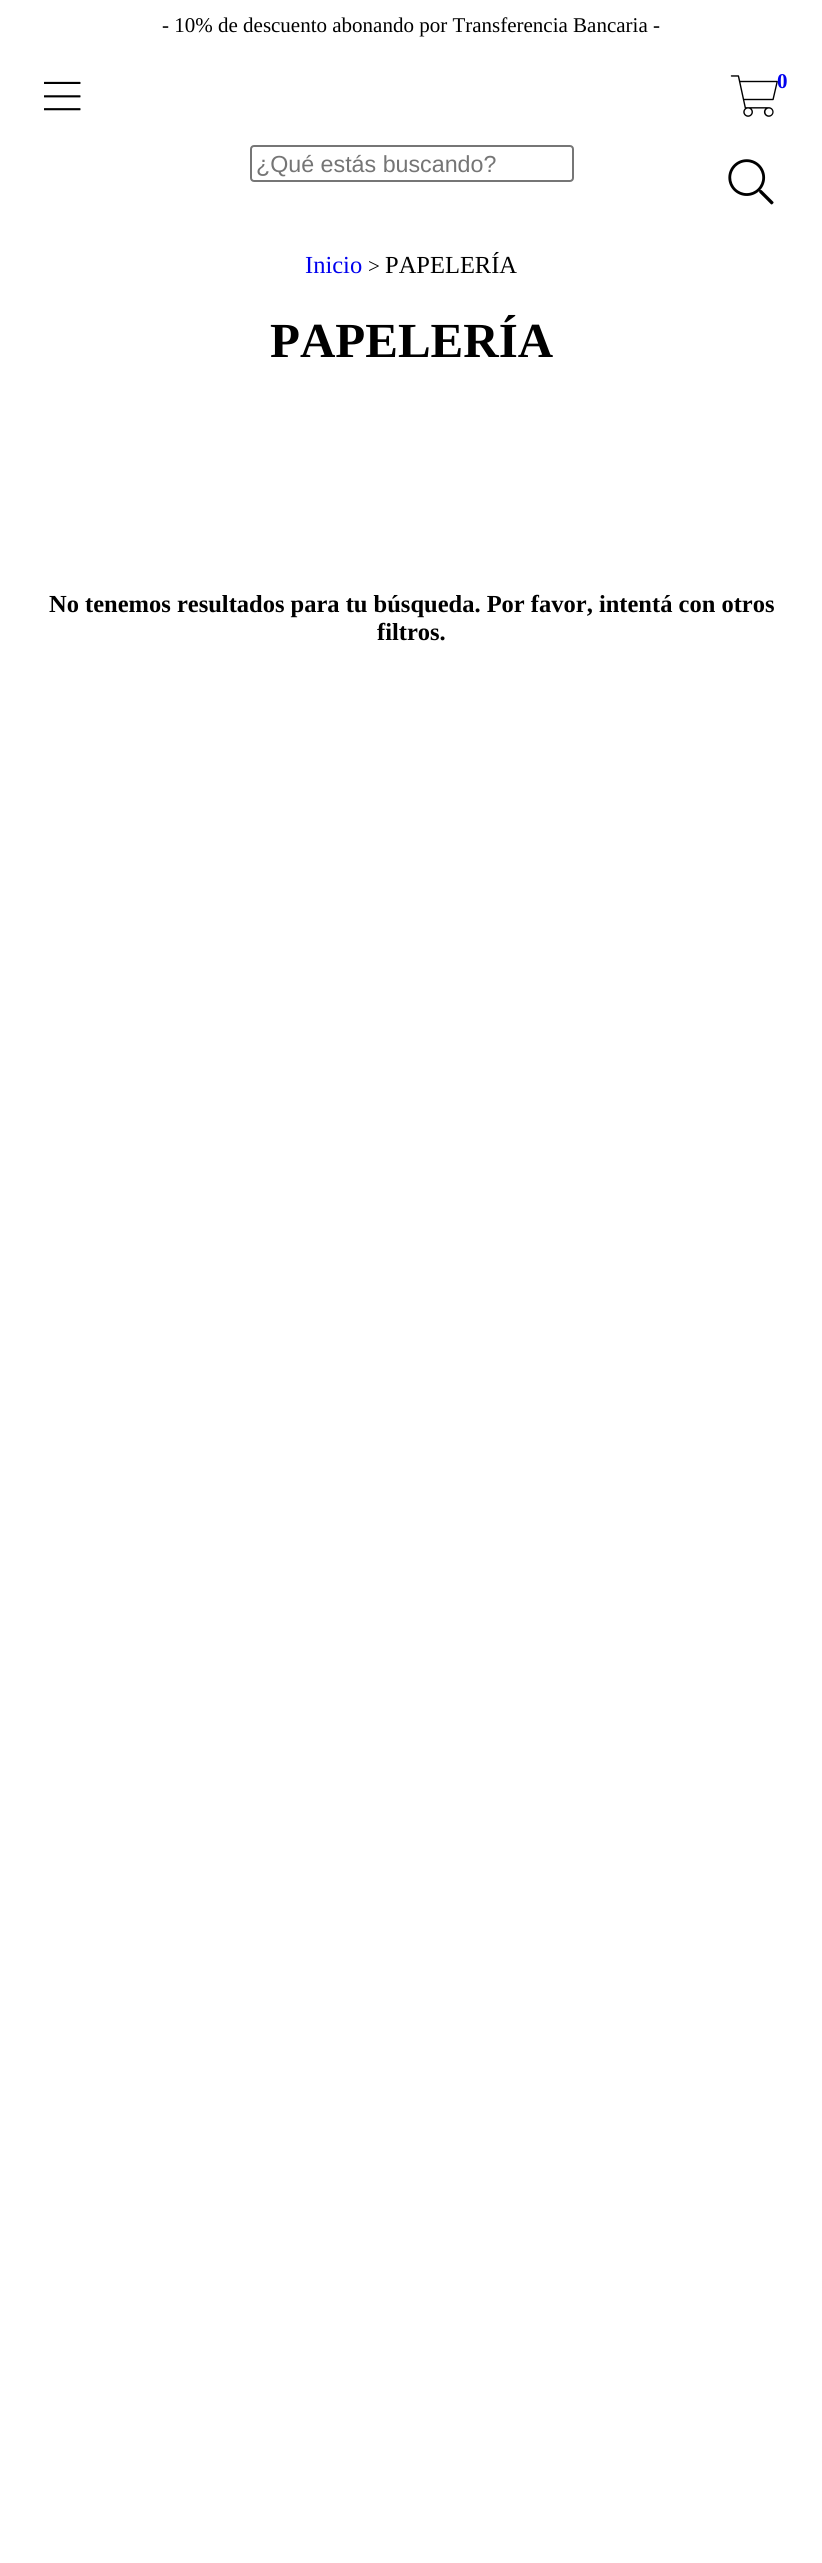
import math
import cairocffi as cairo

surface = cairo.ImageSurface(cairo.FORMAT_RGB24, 822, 2563)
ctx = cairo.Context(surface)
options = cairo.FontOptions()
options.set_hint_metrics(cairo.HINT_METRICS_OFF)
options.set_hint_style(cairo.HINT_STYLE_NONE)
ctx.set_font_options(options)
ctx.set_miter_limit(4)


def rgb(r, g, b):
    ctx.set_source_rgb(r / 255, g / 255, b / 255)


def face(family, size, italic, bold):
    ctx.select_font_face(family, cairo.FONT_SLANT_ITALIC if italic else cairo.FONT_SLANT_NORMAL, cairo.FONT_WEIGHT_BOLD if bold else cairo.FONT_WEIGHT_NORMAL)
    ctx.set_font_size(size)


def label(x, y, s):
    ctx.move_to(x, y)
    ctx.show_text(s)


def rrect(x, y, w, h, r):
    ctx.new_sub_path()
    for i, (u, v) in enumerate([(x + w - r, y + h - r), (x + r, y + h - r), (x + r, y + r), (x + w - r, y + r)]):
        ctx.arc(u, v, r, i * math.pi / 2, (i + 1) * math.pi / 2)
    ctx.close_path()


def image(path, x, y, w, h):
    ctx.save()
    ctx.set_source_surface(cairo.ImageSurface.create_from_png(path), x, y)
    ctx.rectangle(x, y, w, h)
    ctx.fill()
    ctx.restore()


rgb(255, 255, 255)
ctx.paint()
face('Liberation Serif', 21, 0, 0)
rgb(0, 0, 0)
label(162, 32, '- 10% de descuento abonando por Transferencia Bancaria -')
image('image0.png', 44, 81, 37, 30)
image('image1.png', 730, 75, 48, 42)
face('Liberation Serif', 21, 0, 1)
rgb(0, 0, 238)
label(777, 88, '0')
rrect(251, 146, 322, 35, 3)
rgb(118, 118, 118)
ctx.stroke()
face('Liberation Sans', 23.25, 0, 0)
rgb(117, 117, 117)
label(256, 172, '¿Qué estás buscando?')
image('image2.png', 728, 159, 46, 46)
face('Liberation Serif', 24.5, 0, 0)
rgb(0, 0, 238)
label(305, 273, 'Inicio')
face('Liberation Serif', 21, 0, 0)
rgb(0, 0, 0)
label(368, 273, '>')
face('Liberation Serif', 24.5, 0, 0)
label(385, 273, 'PAPELERÍA')
face('Liberation Serif', 49, 0, 1)
label(270, 357, 'PAPELERÍA')
face('Liberation Serif', 24.5, 0, 1)
label(49, 612, 'No tenemos resultados para tu búsqueda. Por favor, intentá con otros')
label(377, 640, 'filtros.')
surface.write_to_png('render.png')
